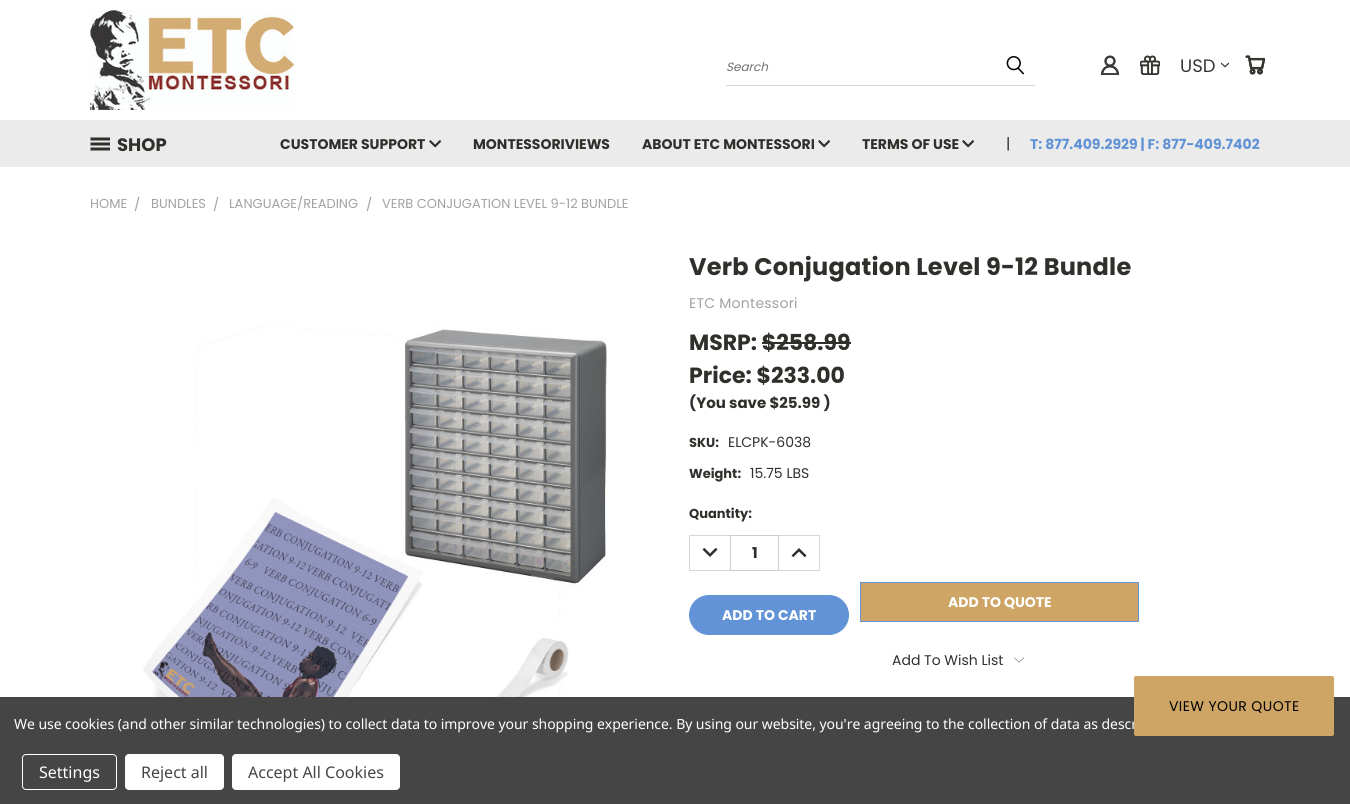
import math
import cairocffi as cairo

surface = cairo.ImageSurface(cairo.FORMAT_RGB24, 1350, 804)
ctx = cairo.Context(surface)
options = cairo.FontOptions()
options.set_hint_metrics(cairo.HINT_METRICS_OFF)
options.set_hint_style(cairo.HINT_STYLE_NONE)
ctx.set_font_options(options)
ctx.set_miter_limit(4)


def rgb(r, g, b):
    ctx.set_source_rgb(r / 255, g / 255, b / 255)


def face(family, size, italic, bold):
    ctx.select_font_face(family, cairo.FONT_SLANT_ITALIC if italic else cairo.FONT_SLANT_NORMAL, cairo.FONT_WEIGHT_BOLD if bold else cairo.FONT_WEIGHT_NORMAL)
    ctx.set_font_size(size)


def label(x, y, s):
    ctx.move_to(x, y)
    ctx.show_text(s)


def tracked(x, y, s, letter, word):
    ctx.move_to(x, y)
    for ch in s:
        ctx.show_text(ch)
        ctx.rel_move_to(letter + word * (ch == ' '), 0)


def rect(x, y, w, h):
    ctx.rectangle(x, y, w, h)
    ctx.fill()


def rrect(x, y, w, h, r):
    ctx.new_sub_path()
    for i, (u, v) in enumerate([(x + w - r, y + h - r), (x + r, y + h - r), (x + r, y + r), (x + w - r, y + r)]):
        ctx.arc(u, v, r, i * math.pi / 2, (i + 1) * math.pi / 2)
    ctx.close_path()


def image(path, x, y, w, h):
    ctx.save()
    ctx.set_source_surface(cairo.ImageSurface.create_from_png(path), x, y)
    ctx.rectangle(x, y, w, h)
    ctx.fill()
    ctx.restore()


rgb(255, 255, 255)
ctx.paint()
image('image0.png', 90, 10, 204, 100)
rgb(215, 215, 215)
rect(726, 85, 309, 1)
face('Poppins', 12, 1, 0)
rgb(112, 112, 110)
label(726, 71, 'Search')
image('image1.png', 1006, 56, 18, 19)
image('image2.png', 1101, 55, 18, 20)
image('image3.png', 1140, 55, 20, 20)
face('Poppins', 18, 0, 0)
rgb(54, 54, 51)
label(1180, 72, 'USD')
image('image4.png', 1221, 62, 8, 6)
image('image5.png', 1245, 55, 20, 20)
rgb(235, 235, 235)
rect(0, 120, 1350, 47)
image('image6.png', 90, 137, 20, 14)
face('Poppins', 18, 0, 1)
rgb(47, 47, 43)
label(117, 151, 'SHOP')
face('Poppins', 14, 0, 1)
label(280, 149, 'CUSTOMER SUPPORT')
image('image7.png', 429, 140, 12, 8)
label(473, 149, 'MONTESSORIVIEWS')
label(642, 149, 'ABOUT ETC MONTESSORI')
image('image7.png', 818, 140, 12, 8)
label(862, 149, 'TERMS OF USE')
image('image7.png', 962, 140, 12, 8)
face('Poppins', 15, 0, 0)
label(1006, 149, '|')
face('Poppins', 14, 0, 1)
rgb(98, 147, 214)
label(1030, 149, 'T: 877.409.2929 | F: 877-409.7402')
face('Poppins', 13, 0, 0)
rgb(162, 162, 162)
label(90, 208, 'HOME')
label(134, 209, '/')
label(151, 208, 'BUNDLES')
label(213, 209, '/')
label(229, 208, 'LANGUAGE/READING')
label(366, 209, '/')
label(382, 208, 'VERB CONJUGATION LEVEL 9-12 BUNDLE')
image('image8.png', 143, 326, 464, 371)
face('Poppins', 24, 0, 1)
rgb(47, 47, 43)
tracked(689, 275, 'Verb Conjugation Level 9-12 Bundle', 0.25, 0)
face('Poppins', 14, 0, 0)
rgb(162, 162, 162)
tracked(689, 308, 'ETC Montessori', 0.25, 0)
face('Poppins', 22, 0, 1)
rgb(47, 47, 43)
label(689, 350, 'MSRP: $258.99')
rect(762, 342, 89, 2)
label(689, 383, 'Price: $233.00')
face('Poppins', 15, 0, 1)
label(689, 408, '(You save $25.99 )')
face('Poppins', 13, 0, 1)
label(689, 447, 'SKU:')
face('Poppins', 14, 0, 0)
label(728, 447, 'ELCPK-6038')
face('Poppins', 13, 0, 1)
label(689, 478, 'Weight:')
face('Poppins', 14, 0, 0)
label(750, 478, '15.75 LBS')
face('Poppins', 13, 0, 1)
label(689, 518, 'Quantity:')
rgb(215, 215, 215)
rect(689, 535, 41, 1)
rect(689, 570, 41, 1)
rect(689, 535, 1, 36)
image('image9.png', 702, 547, 16, 10)
ctx.rectangle(730.5, 535.5, 48, 35)
rgb(204, 204, 204)
ctx.set_line_width(1)
ctx.stroke()
face('Poppins', 15, 0, 1)
rgb(47, 47, 43)
label(752, 558, '1')
rgb(215, 215, 215)
rect(779, 535, 41, 1)
rect(819, 535, 1, 36)
rect(779, 570, 41, 1)
image('image10.png', 791, 548, 16, 10)
rgb(98, 147, 214)
rrect(689.5, 595.5, 159, 39, 19.5)
ctx.fill_preserve()
ctx.stroke()
face('Poppins', 14, 0, 1)
rgb(255, 255, 255)
label(722, 620, 'ADD TO CART')
rgb(206, 165, 101)
ctx.rectangle(860.5, 582.5, 278, 39)
ctx.fill_preserve()
rgb(98, 147, 214)
ctx.stroke()
rgb(255, 255, 255)
label(948, 607, 'ADD TO QUOTE')
face('Poppins', 14, 0, 0)
rgb(47, 47, 43)
label(892, 665, 'Add To Wish List')
image('image11.png', 1014, 657, 10, 6)
rgb(69, 69, 69)
rect(0, 697, 1350, 107)
face('Noto Sans', 14, 0, 0)
rgb(255, 255, 255)
tracked(14, 729, 'We use cookies (and other similar technologies) to collect data to improve your shopping experience. By using our website, you\'re agreeing to the collection of data as descr', -0.05, 0)
rgb(206, 165, 101)
rrect(1134, 676, 200, 60, 2)
ctx.fill()
face('Poppins', 14, 0, 0)
rgb(0, 0, 0)
tracked(1169, 711, 'VIEW YOUR QUOTE', 0.4, 0)
rrect(22.5, 754.5, 94, 35, 3.5)
rgb(255, 255, 255)
ctx.stroke()
face('Noto Sans', 16, 0, 0)
label(39, 778, 'Settings')
rrect(125, 754, 99, 36, 4)
ctx.fill()
rgb(69, 69, 69)
label(141, 778, 'Reject all')
rgb(255, 255, 255)
rrect(232, 754, 168, 36, 4)
ctx.fill()
rgb(69, 69, 69)
label(248, 778, 'Accept All Cookies')
surface.write_to_png('render.png')
